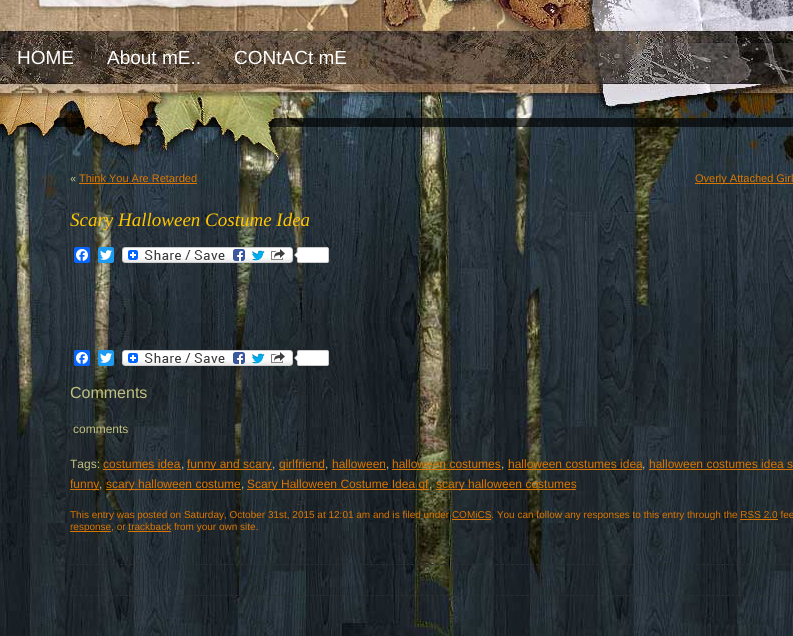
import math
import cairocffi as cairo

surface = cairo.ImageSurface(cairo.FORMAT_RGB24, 793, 636)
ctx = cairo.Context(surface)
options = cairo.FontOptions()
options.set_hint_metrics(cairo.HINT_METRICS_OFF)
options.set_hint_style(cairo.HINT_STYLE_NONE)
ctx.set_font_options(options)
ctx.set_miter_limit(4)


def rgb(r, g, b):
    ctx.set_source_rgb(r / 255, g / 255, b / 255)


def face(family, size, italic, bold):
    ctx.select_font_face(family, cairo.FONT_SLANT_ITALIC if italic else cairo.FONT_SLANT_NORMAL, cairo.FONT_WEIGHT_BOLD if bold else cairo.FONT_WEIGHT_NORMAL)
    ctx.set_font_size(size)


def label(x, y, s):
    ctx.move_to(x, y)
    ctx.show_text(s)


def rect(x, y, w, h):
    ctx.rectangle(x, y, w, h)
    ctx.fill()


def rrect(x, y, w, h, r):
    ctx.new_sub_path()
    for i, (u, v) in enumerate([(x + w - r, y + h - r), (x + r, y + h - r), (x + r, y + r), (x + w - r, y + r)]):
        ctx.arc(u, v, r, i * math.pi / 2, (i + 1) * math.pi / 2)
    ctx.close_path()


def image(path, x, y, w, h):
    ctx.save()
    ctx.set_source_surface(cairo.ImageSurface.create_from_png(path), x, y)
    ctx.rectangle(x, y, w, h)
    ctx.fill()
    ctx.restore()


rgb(255, 255, 255)
ctx.paint()
image('image0.png', 0, 0, 793, 636)
face('Liberation Sans', 19, 0, 0)
rgb(255, 255, 255)
label(17, 64, 'HOME')
label(107, 64, 'About mE..')
label(234, 64, 'CONtACt mE')
image('image2.png', 0, 118, 793, 9)
image('image1.png', 0, 118, 285, 47)
face('Liberation Sans', 11, 0, 0)
rgb(192, 193, 126)
label(70, 182, '«')
rgb(218, 118, 0)
label(79, 182, 'Think You Are Retarded')
rect(79, 183, 118, 1)
rect(695, 183, 98, 1)
label(695, 182, 'Overly Attached Girl')
ctx.new_path()
ctx.move_to(70, 564.5)
ctx.line_to(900, 564.5)
rgb(43, 47, 48)
ctx.set_line_width(1)
ctx.set_dash([3, 2.01])
ctx.stroke()
face('Liberation Serif', 19, 1, 0)
rgb(255, 198, 0)
label(70, 226, 'Scary Halloween Costume Idea')
rgb(8, 102, 255)
rrect(74, 247, 16, 16, 2)
ctx.fill()
image('image3.png', 76, 249, 12, 12)
rgb(29, 155, 240)
rrect(98, 247, 16, 16, 2)
ctx.fill()
image('image4.png', 100, 250, 12, 10)
image('image5.png', 122, 247, 171, 16)
rgb(255, 255, 255)
rrect(297.5, 247.5, 31, 15, 1.5)
ctx.fill_preserve()
rgb(204, 204, 204)
ctx.set_dash([])
ctx.stroke()
ctx.new_path()
ctx.move_to(298, 251)
ctx.line_to(298, 259)
ctx.line_to(294, 255)
ctx.close_path()
ctx.fill()
rgb(255, 255, 255)
ctx.new_path()
ctx.move_to(299, 251)
ctx.line_to(299, 259)
ctx.line_to(295, 255)
ctx.close_path()
ctx.fill()
rgb(8, 102, 255)
rrect(74, 350, 16, 16, 2)
ctx.fill()
image('image3.png', 76, 352, 12, 12)
rgb(29, 155, 240)
rrect(98, 350, 16, 16, 2)
ctx.fill()
image('image4.png', 100, 353, 12, 10)
image('image6.png', 122, 350, 171, 16)
rgb(255, 255, 255)
rrect(297.5, 350.5, 31, 15, 1.5)
ctx.fill_preserve()
rgb(204, 204, 204)
ctx.stroke()
ctx.new_path()
ctx.move_to(298, 354)
ctx.line_to(298, 362)
ctx.line_to(294, 358)
ctx.close_path()
ctx.fill()
rgb(255, 255, 255)
ctx.new_path()
ctx.move_to(299, 354)
ctx.line_to(299, 362)
ctx.line_to(295, 358)
ctx.close_path()
ctx.fill()
face('Liberation Sans', 16, 0, 0)
rgb(192, 193, 126)
label(70, 398, 'Comments')
face('Liberation Sans', 12, 0, 0)
label(73, 433, 'comments')
label(70, 468, 'Tags:')
rgb(218, 118, 0)
label(103, 468, 'costumes idea')
rect(103, 469, 78, 1)
rgb(192, 193, 126)
label(181, 468, ',')
rgb(218, 118, 0)
rect(187, 469, 85, 1)
label(187, 468, 'funny and scary')
rgb(192, 193, 126)
label(272, 468, ',')
rgb(218, 118, 0)
rect(279, 469, 46, 1)
label(279, 468, 'girlfriend')
rgb(192, 193, 126)
label(325, 468, ',')
rgb(218, 118, 0)
label(332, 468, 'halloween')
rect(332, 469, 54, 1)
rgb(192, 193, 126)
label(386, 468, ',')
rgb(218, 118, 0)
label(392, 468, 'halloween costumes')
rect(392, 469, 109, 1)
rgb(192, 193, 126)
label(501, 468, ',')
rgb(218, 118, 0)
label(508, 468, 'halloween costumes idea')
rect(508, 469, 134, 1)
rgb(192, 193, 126)
label(642, 468, ',')
rgb(218, 118, 0)
label(649, 468, 'halloween costumes idea s')
rect(649, 469, 144, 1)
rect(70, 489, 29, 1)
label(70, 488, 'funny')
rgb(192, 193, 126)
label(99, 488, ',')
rgb(218, 118, 0)
rect(106, 489, 135, 1)
label(106, 488, 'scary halloween costume')
rgb(192, 193, 126)
label(241, 488, ',')
rgb(218, 118, 0)
rect(247, 489, 182, 1)
label(247, 488, 'Scary Halloween Costume Idea gf')
rgb(192, 193, 126)
label(429, 488, ',')
rgb(218, 118, 0)
rect(436, 489, 140, 1)
label(436, 488, 'scary halloween costumes')
face('Liberation Sans', 10, 0, 0)
label(70, 518, 'This entry was posted on Saturday, October 31st, 2015 at 12:01 am and is filed under COMiCS. You can follow any responses to this entry through the RSS 2.0 fee')
rect(452, 519, 39, 1)
rect(740, 519, 38, 1)
rect(70, 531, 41, 1)
label(70, 530, 'response, or trackback from your own site.')
rect(128, 531, 43, 1)
ctx.new_path()
ctx.move_to(70, 595.5)
ctx.line_to(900, 595.5)
rgb(43, 47, 48)
ctx.set_dash([3, 2.01])
ctx.stroke()
surface.write_to_png('render.png')
